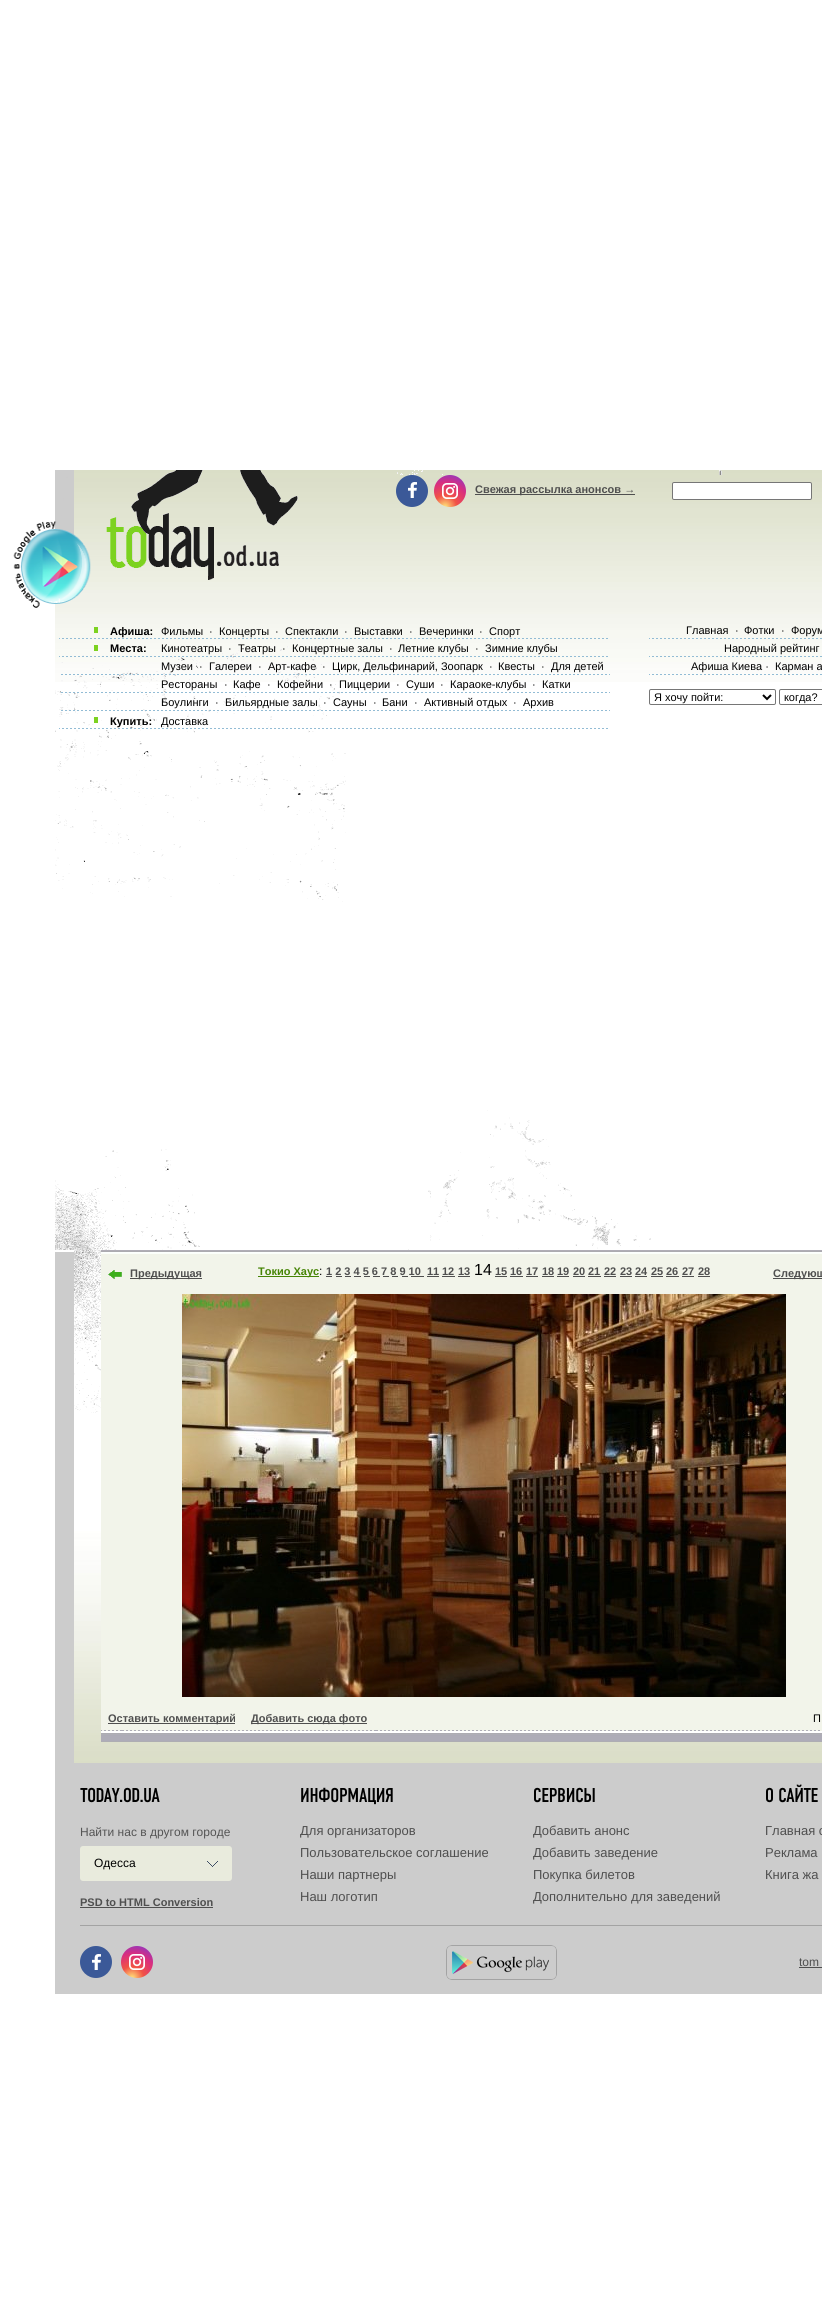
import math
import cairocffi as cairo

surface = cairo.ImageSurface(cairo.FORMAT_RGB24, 822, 2297)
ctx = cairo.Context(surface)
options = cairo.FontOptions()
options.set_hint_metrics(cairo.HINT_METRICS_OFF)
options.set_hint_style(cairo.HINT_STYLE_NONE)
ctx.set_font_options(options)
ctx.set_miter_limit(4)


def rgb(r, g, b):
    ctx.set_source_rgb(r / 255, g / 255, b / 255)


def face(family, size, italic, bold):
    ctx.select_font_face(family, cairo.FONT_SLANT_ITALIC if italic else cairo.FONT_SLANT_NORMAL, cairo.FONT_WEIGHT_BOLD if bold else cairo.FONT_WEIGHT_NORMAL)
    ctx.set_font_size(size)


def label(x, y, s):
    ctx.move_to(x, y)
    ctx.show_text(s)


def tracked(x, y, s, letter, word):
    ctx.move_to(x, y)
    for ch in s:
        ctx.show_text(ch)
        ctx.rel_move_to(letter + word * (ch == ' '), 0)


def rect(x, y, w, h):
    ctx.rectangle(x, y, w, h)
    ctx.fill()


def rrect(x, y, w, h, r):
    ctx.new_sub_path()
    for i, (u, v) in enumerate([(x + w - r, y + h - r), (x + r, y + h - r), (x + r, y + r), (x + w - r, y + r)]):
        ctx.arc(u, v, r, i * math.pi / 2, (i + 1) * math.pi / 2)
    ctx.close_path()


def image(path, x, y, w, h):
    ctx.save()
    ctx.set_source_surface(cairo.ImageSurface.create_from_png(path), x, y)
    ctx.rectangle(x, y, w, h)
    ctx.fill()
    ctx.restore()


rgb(255, 255, 255)
ctx.paint()
image('image12.png', 55, 470, 767, 212)
image('image13.png', 55, 470, 667, 943)
image('image0.png', 13, 521, 78, 87)
rgb(59, 89, 152)
ctx.arc(412, 491, 16, 0, 2 * math.pi)
ctx.fill()
image('image1.png', 408, 482, 9, 16)
gradient = cairo.RadialGradient(445, 507, 0, 445, 507, 39)
gradient.add_color_stop_rgba(0.04, 0.996, 0.827, 0.451, 1)
gradient.add_color_stop_rgba(0.3, 0.945, 0.322, 0.271, 1)
gradient.add_color_stop_rgba(0.62, 0.851, 0.18, 0.498, 1)
gradient.add_color_stop_rgba(0.85, 0.608, 0.212, 0.718, 1)
gradient.add_color_stop_rgba(1, 0.318, 0.369, 0.812, 1)
ctx.set_source(gradient)
ctx.arc(450, 491, 16, 0, 2 * math.pi)
ctx.fill()
image('image2.png', 442, 483, 16, 16)
rgb(79, 79, 79)
rect(475, 494, 160, 1)
face('Liberation Sans', 11, 0, 1)
label(475, 493, 'Свежая рассылка анонсов →')
rgb(255, 255, 255)
rrect(672.5, 482.5, 139, 17, 1.5)
ctx.fill_preserve()
rgb(118, 118, 118)
ctx.set_line_width(1)
ctx.stroke()
image('image3.png', 59, 627, 549, 12)
rgb(0, 0, 0)
label(110, 635, 'Афиша:')
face('Liberation Sans', 11, 0, 0)
label(161, 635, 'Фильмы')
label(209, 635, '·')
label(219, 635, 'Концерты')
label(275, 635, '·')
label(285, 635, 'Спектакли')
label(344, 635, '·')
label(354, 635, 'Выставки')
label(409, 635, '·')
label(419, 635, 'Вечеринки')
label(479, 635, '·')
label(489, 635, 'Спорт')
image('image4.png', 59, 645, 549, 12)
face('Liberation Sans', 11, 0, 1)
label(110, 652, 'Места:')
face('Liberation Sans', 11, 0, 0)
label(161, 652, 'Кинотеатры')
label(228, 652, '·')
label(238, 652, 'Театры')
label(282, 652, '·')
label(292, 652, 'Концертные залы')
label(389, 652, '·')
label(398, 652, 'Летние клубы')
label(475, 652, '·')
label(485, 652, 'Зимние клубы')
image('image5.png', 61, 674, 549, 1)
label(161, 670, 'Музеи')
label(199, 670, '·')
label(209, 670, 'Галереи')
label(258, 670, '·')
label(268, 670, 'Арт-кафе')
label(322, 670, '·')
label(332, 670, 'Цирк, Дельфинарий, Зоопарк')
label(489, 670, '·')
label(498, 670, 'Квесты')
label(541, 670, '·')
label(551, 670, 'Для детей')
image('image6.png', 61, 692, 549, 1)
label(161, 688, 'Рестораны')
label(224, 688, '·')
label(233, 688, 'Кафе')
label(267, 688, '·')
label(277, 688, 'Кофейни')
label(329, 688, '·')
label(339, 688, 'Пиццерии')
label(396, 688, '·')
label(406, 688, 'Суши')
label(440, 688, '·')
label(450, 688, 'Караоке-клубы')
label(532, 688, '·')
label(542, 688, 'Катки')
image('image7.png', 61, 710, 549, 1)
label(161, 706, 'Боулинги')
label(215, 706, '·')
label(225, 706, 'Бильярдные залы')
label(323, 706, '·')
label(333, 706, 'Сауны')
label(373, 706, '·')
label(382, 706, 'Бани')
label(414, 706, '·')
label(424, 706, 'Активный отдых')
label(513, 706, '·')
label(523, 706, 'Архив')
image('image8.png', 59, 717, 549, 12)
face('Liberation Sans', 11, 0, 1)
label(110, 725, 'Купить:')
face('Liberation Sans', 11, 0, 0)
label(161, 725, 'Доставка')
image('image9.png', 649, 638, 173, 1)
label(686, 634, 'Главная')
label(735, 634, '·')
label(744, 634, 'Фотки')
label(781, 634, '·')
label(791, 634, 'Форум')
image('image10.png', 649, 656, 173, 1)
label(724, 652, 'Народный рейтинг')
image('image11.png', 649, 674, 173, 1)
label(691, 670, 'Афиша Киева ·')
label(775, 670, 'Карман а')
rrect(649.5, 689.5, 126, 15, 1.5)
rgb(118, 118, 118)
ctx.stroke()
ctx.new_path()
ctx.move_to(763, 695)
ctx.line_to(767, 699)
ctx.line_to(771, 695)
rgb(0, 0, 0)
ctx.set_line_width(2)
ctx.stroke()
label(654, 701, 'Я хочу пойти:')
rrect(779.5, 689.5, 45, 15, 1.5)
rgb(118, 118, 118)
ctx.set_line_width(1)
ctx.stroke()
rgb(0, 0, 0)
label(784, 701, 'когда?')
image('image14.png', 74, 1413, 748, 350)
rgb(204, 204, 204)
rect(55, 1252, 19, 511)
rgb(255, 255, 255)
rect(55, 1250, 19, 2)
image('image15.png', 101, 1250, 721, 4)
rgb(242, 244, 234)
rect(101, 1254, 721, 477)
image('image16.png', 101, 1730, 719, 1)
image('image17.png', 108, 1270, 14, 9)
rgb(79, 79, 79)
rect(130, 1278, 72, 1)
face('Liberation Sans', 11, 0, 1)
label(130, 1277, 'Предыдущая')
rgb(70, 132, 5)
rect(258, 1276, 61, 1)
label(258, 1275, 'Токио Хаус')
face('Liberation Sans', 12, 0, 0)
rgb(0, 0, 0)
label(319, 1275, ':')
face('Liberation Sans', 11, 0, 1)
rgb(79, 79, 79)
label(326, 1275, '1 2 3 4 5 6 7 8 9 10')
rect(326, 1276, 6, 1)
label(427, 1275, '11')
rect(427, 1276, 12, 1)
label(442, 1275, '12')
rect(442, 1276, 13, 1)
label(458, 1275, '13')
rect(458, 1276, 12, 1)
face('Liberation Sans', 16, 0, 0)
rgb(0, 0, 0)
label(474, 1275, '14')
face('Liberation Sans', 11, 0, 1)
rgb(79, 79, 79)
label(495, 1275, '15')
rect(495, 1276, 12, 1)
label(510, 1275, '16')
rect(510, 1276, 13, 1)
label(526, 1275, '17')
rect(526, 1276, 12, 1)
label(542, 1275, '18')
rect(542, 1276, 12, 1)
label(557, 1275, '19')
rect(557, 1276, 12, 1)
label(573, 1275, '20')
rect(573, 1276, 12, 1)
label(588, 1275, '21')
rect(588, 1276, 13, 1)
label(604, 1275, '22')
rect(604, 1276, 12, 1)
label(620, 1275, '23')
rect(620, 1276, 12, 1)
label(635, 1275, '24')
rect(635, 1276, 12, 1)
label(651, 1275, '25')
rect(651, 1276, 12, 1)
label(666, 1275, '26')
rect(666, 1276, 13, 1)
label(682, 1275, '27')
rect(682, 1276, 12, 1)
label(698, 1275, '28')
rect(698, 1276, 12, 1)
rect(336, 1276, 6, 1)
rect(345, 1276, 6, 1)
rect(354, 1276, 7, 1)
rect(364, 1276, 6, 1)
rect(373, 1276, 7, 1)
rect(383, 1276, 6, 1)
rect(392, 1276, 6, 1)
rect(402, 1276, 6, 1)
rect(411, 1276, 13, 1)
rect(773, 1278, 49, 1)
label(773, 1277, 'Следующ')
image('image18.png', 182, 1294, 604, 403)
rect(108, 1723, 127, 1)
label(108, 1722, 'Оставить комментарий')
rect(251, 1723, 116, 1)
label(251, 1722, 'Добавить сюда фото')
face('Liberation Sans', 11, 0, 0)
rgb(0, 0, 0)
label(813, 1722, 'П')
image('image19.png', 101, 1731, 721, 11)
rgb(204, 204, 204)
rect(55, 1763, 767, 231)
face('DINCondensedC', 20, 0, 0)
rgb(0, 0, 0)
tracked(80, 1802, 'TODAY.OD.UA', -0.75, 0)
face('Liberation Sans', 12, 0, 0)
rgb(85, 85, 85)
label(80, 1836, 'Найти нас в другом городе')
rgb(233, 235, 221)
rrect(80, 1846, 152, 35, 3)
ctx.fill()
rgb(0, 0, 0)
label(94, 1867, 'Одесса')
image('image20.png', 207, 1861, 11, 6)
face('Liberation Sans', 11, 0, 1)
rgb(79, 79, 79)
label(80, 1906, 'PSD to HTML Conversion')
rect(80, 1907, 133, 1)
face('DINCondensedC', 20, 0, 0)
rgb(0, 0, 0)
tracked(300, 1802, 'ИНФОРМАЦИЯ', -0.25, 0)
face('Liberation Sans', 13, 0, 0)
rgb(79, 79, 79)
label(300, 1835, 'Для организаторов')
label(300, 1857, 'Пользовательское соглашение')
label(300, 1879, 'Наши партнеры')
label(300, 1901, 'Наш логотип')
face('DINCondensedC', 20, 0, 0)
rgb(0, 0, 0)
tracked(533, 1802, 'СЕРВИСЫ', -0.25, 0)
face('Liberation Sans', 13, 0, 0)
rgb(79, 79, 79)
label(533, 1835, 'Добавить анонс')
label(533, 1857, 'Добавить заведение')
label(533, 1879, 'Покупка билетов')
label(533, 1901, 'Дополнительно для заведений')
face('DINCondensedC', 20, 0, 0)
rgb(0, 0, 0)
tracked(765, 1802, 'О САЙТЕ', -0.25, 0)
face('Liberation Sans', 13, 0, 0)
rgb(79, 79, 79)
label(765, 1835, 'Главная с')
label(765, 1857, 'Реклама')
label(765, 1879, 'Книга жа')
rgb(163, 163, 163)
rect(80, 1925, 742, 1)
rgb(59, 89, 152)
ctx.new_path()
ctx.arc(96, 1962, 16, 0, 2 * math.pi)
ctx.fill()
image('image1.png', 92, 1954, 9, 16)
gradient = cairo.RadialGradient(132, 1978, 0, 132, 1978, 39)
gradient.add_color_stop_rgba(0.04, 0.996, 0.827, 0.451, 1)
gradient.add_color_stop_rgba(0.3, 0.945, 0.322, 0.271, 1)
gradient.add_color_stop_rgba(0.62, 0.851, 0.18, 0.498, 1)
gradient.add_color_stop_rgba(0.85, 0.608, 0.212, 0.718, 1)
gradient.add_color_stop_rgba(1, 0.318, 0.369, 0.812, 1)
ctx.set_source(gradient)
ctx.arc(137, 1962, 16, 0, 2 * math.pi)
ctx.fill()
image('image2.png', 129, 1954, 16, 16)
image('image21.png', 446, 1945, 111, 35)
face('Liberation Sans', 12, 0, 0)
rgb(79, 79, 79)
label(799, 1966, 'tom')
rect(799, 1967, 23, 1)
surface.write_to_png('render.png')
